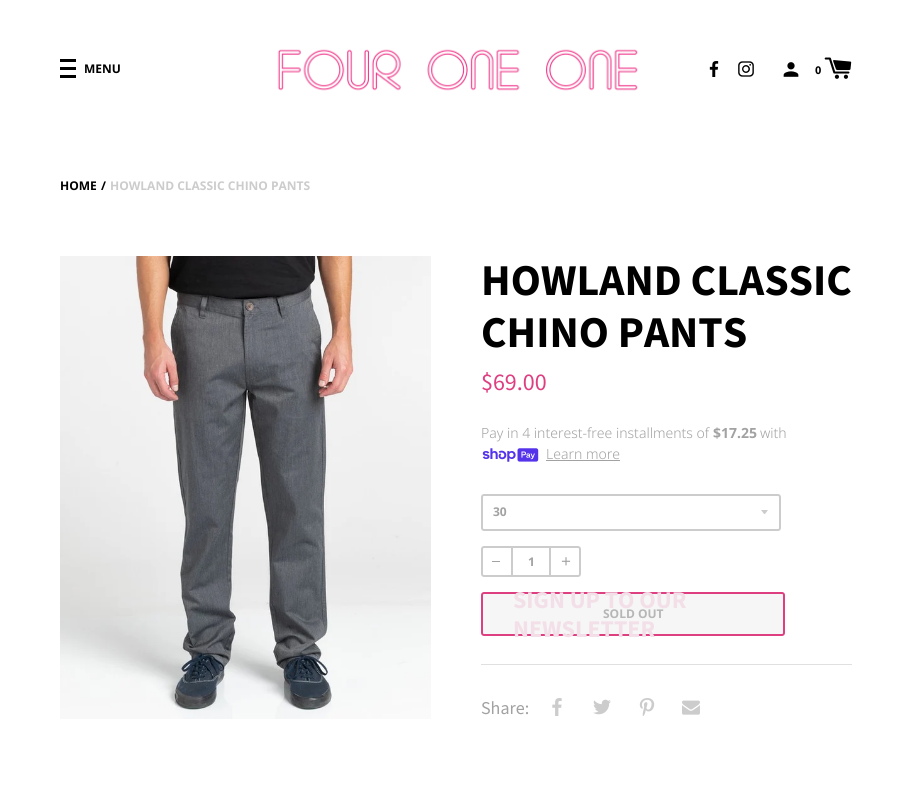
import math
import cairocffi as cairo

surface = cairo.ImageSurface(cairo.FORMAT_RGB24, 912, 807)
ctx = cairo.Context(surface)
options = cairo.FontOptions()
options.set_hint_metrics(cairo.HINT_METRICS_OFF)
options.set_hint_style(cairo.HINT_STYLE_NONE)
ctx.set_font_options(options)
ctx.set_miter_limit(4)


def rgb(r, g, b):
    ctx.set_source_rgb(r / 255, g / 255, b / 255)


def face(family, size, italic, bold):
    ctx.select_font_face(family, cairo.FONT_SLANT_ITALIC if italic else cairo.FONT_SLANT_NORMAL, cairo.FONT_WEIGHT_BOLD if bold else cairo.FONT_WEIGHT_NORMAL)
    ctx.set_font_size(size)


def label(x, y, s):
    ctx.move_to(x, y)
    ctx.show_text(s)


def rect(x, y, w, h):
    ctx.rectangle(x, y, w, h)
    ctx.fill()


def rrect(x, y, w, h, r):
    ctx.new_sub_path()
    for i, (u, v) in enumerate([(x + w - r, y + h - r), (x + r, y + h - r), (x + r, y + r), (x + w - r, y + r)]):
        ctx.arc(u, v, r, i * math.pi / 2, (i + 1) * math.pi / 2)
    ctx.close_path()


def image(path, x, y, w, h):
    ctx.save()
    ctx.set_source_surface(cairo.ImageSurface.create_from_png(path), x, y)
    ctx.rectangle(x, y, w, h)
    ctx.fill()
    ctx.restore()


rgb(255, 255, 255)
ctx.paint()
rgb(0, 0, 0)
rect(60, 59, 16, 3)
rect(60, 67, 16, 3)
rect(60, 75, 16, 3)
face('Open Sans', 12, 0, 1)
label(84, 73, 'MENU')
image('image0.png', 277, 49, 361, 42)
image('image1.png', 709, 61, 10, 16)
image('image2.png', 738, 61, 16, 16)
image('image3.png', 783, 62, 16, 15)
face('Source Sans Pro', 12, 0, 1)
label(815, 74, '0')
image('image4.png', 824, 57, 28, 22)
face('Open Sans', 12, 0, 1)
label(60, 190, 'HOME')
label(101, 190, '/')
rgb(204, 204, 204)
label(110, 190, 'HOWLAND CLASSIC CHINO PANTS')
image('image5.png', 60, 256, 371, 463)
face('Source Sans Pro', 44, 0, 1)
rgb(0, 0, 0)
label(481, 295, 'HOWLAND CLASSIC')
label(481, 347, 'CHINO PANTS')
face('Source Sans Pro', 24, 0, 0)
rgb(222, 63, 129)
label(481, 390, '$69.00')
face('Noto Sans Light', 14, 0, 0)
rgb(162, 162, 162)
label(481, 438, 'Pay in 4 interest-free installments of')
face('Noto Sans', 14, 0, 1)
label(713, 438, '$17.25')
face('Noto Sans Light', 14, 0, 0)
label(760, 438, 'with')
image('image6.png', 482, 448, 57, 14)
label(546, 459, 'Learn more')
rect(546, 460, 74, 1)
rgb(204, 204, 204)
ctx.new_path()
ctx.move_to(761, 510)
ctx.curve_to(765.5, 515.5, 763.5, 515.5, 768, 510)
ctx.close_path()
ctx.fill()
rrect(482, 495, 298, 35, 2)
ctx.stroke()
face('Open Sans', 12, 0, 1)
rgb(162, 162, 162)
label(493, 516, '30')
rrect(482, 547, 98, 29, 2)
rgb(204, 204, 204)
ctx.stroke()
rect(511, 546, 2, 31)
rgb(162, 162, 162)
rect(492, 561, 8, 1)
label(528, 566, '1')
rgb(204, 204, 204)
rect(549, 546, 2, 31)
image('image7.png', 561, 557, 10, 9)
rgb(246, 246, 246)
rrect(482, 593, 302, 42, 2)
ctx.fill_preserve()
rgb(222, 63, 129)
ctx.stroke()
rgb(182, 182, 182)
label(603, 618, 'SOLD OUT')
rgb(224, 224, 224)
rect(481, 664, 371, 1)
face('Source Sans Pro', 18, 0, 0)
rgb(162, 162, 162)
label(481, 714, 'Share:')
image('image8.png', 552, 698, 10, 18)
image('image9.png', 593, 699, 18, 16)
image('image10.png', 639, 698, 16, 18)
image('image11.png', 682, 700, 18, 15)
face('Source Sans Pro', 24, 0, 1)
rgb(243, 223, 231)
label(513, 608, 'SIGN UP TO OUR')
label(513, 637, 'NEWSLETTER')
surface.write_to_png('render.png')
